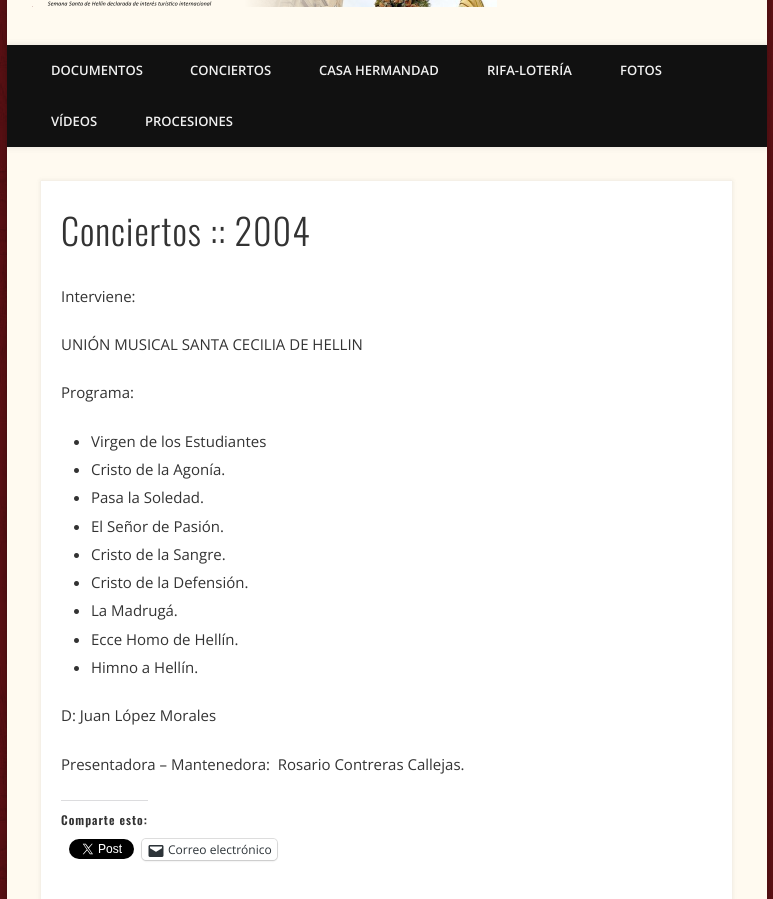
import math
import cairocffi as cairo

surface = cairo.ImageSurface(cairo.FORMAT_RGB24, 773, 899)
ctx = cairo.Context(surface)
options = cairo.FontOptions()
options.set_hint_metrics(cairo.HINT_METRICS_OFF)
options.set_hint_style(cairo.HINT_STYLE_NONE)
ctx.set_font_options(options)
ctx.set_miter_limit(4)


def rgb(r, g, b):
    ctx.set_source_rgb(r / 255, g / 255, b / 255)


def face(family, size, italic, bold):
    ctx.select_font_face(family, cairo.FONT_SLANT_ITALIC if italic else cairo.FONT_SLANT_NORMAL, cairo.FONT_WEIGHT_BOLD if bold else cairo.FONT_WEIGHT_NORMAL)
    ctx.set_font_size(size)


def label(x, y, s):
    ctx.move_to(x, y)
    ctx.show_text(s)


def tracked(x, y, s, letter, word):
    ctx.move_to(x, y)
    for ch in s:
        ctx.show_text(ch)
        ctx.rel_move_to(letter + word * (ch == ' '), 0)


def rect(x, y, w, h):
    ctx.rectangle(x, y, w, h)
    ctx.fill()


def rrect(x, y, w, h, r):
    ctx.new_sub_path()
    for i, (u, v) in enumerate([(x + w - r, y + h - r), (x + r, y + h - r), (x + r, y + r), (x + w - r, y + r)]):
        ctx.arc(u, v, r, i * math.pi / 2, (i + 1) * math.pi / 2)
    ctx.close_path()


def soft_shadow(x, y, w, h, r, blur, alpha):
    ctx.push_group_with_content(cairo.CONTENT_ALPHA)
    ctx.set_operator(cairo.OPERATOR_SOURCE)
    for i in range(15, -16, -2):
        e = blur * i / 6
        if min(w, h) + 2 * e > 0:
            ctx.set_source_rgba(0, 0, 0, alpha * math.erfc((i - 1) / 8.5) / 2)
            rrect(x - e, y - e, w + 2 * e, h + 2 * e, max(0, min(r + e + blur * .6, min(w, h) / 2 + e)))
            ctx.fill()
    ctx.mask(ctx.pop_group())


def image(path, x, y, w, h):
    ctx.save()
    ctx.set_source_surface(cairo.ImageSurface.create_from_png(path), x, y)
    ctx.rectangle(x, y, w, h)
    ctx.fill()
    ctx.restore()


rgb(255, 255, 255)
ctx.paint()
image('image0.png', 0, 0, 773, 899)
rgb(0, 0, 0)
soft_shadow(7, -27, 760, 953, 0, 9, 0.4)
rgb(255, 250, 240)
rect(7, 0, 760, 899)
image('image1.png', 32, 0, 465, 7)
ctx.save()
ctx.rectangle(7, 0, 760, 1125)
ctx.clip()
rgb(0, 0, 0)
soft_shadow(7, 45, 760, 102, 0, 3.5, 0.1)
ctx.restore()
rgb(17, 17, 17)
rect(7, 45, 760, 102)
face('Open Sans SemiBold', 13, 0, 0)
rgb(240, 240, 240)
label(51, 75, 'DOCUMENTOS')
label(190, 75, 'CONCIERTOS')
label(319, 75, 'CASA HERMANDAD')
label(487, 75, 'RIFA-LOTERÍA')
label(620, 75, 'FOTOS')
label(51, 126, 'VÍDEOS')
label(145, 126, 'PROCESIONES')
rgb(0, 0, 0)
soft_shadow(41, 181, 691, 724, 0, 2.5, 0.1)
rgb(255, 255, 255)
rect(41, 181, 691, 718)
face('Oswald Light', 36, 0, 0)
rgb(51, 51, 51)
tracked(61, 246, 'Conciertos :: 2004', 1, 0)
face('Open Sans', 15, 0, 0)
label(61, 302, 'Interviene:')
label(61, 350, 'UNIÓN MUSICAL SANTA CECILIA DE HELLIN')
label(61, 398, 'Programa:')
ctx.new_path()
ctx.arc(76.5, 442.5, 2.5, 0, 2 * math.pi)
ctx.fill()
label(91, 447, 'Virgen de los Estudiantes')
ctx.new_path()
ctx.arc(76.5, 470.5, 2.5, 0, 2 * math.pi)
ctx.fill()
label(91, 475, 'Cristo de la Agonía.')
ctx.new_path()
ctx.arc(76.5, 498.5, 2.5, 0, 2 * math.pi)
ctx.fill()
label(91, 503, 'Pasa la Soledad.')
ctx.new_path()
ctx.arc(76.5, 527.5, 2.5, 0, 2 * math.pi)
ctx.fill()
label(91, 532, 'El Señor de Pasión.')
ctx.new_path()
ctx.arc(76.5, 555.5, 2.5, 0, 2 * math.pi)
ctx.fill()
label(91, 560, 'Cristo de la Sangre.')
ctx.new_path()
ctx.arc(76.5, 583.5, 2.5, 0, 2 * math.pi)
ctx.fill()
label(91, 588, 'Cristo de la Defensión.')
ctx.new_path()
ctx.arc(76.5, 611.5, 2.5, 0, 2 * math.pi)
ctx.fill()
label(91, 616, 'La Madrugá.')
ctx.new_path()
ctx.arc(76.5, 640.5, 2.5, 0, 2 * math.pi)
ctx.fill()
label(91, 645, 'Ecce Homo de Hellín.')
ctx.new_path()
ctx.arc(76.5, 668.5, 2.5, 0, 2 * math.pi)
ctx.fill()
label(91, 673, 'Himno a Hellín.')
label(61, 721, 'D: Juan López Morales')
label(61, 770, 'Presentadora – Mantenedora:  Rosario Contreras Callejas.')
rgb(220, 220, 222)
rect(61, 800, 87, 1)
face('Oswald SemiBold', 12, 0, 0)
rgb(51, 51, 51)
tracked(61, 825, 'Comparte esto:', 1, 0)
image('image2.png', 69, 839, 65, 20)
rrect(141.5, 838.5, 136, 22, 4.5)
rgb(224, 224, 224)
ctx.set_line_width(1)
ctx.stroke()
rgb(0, 0, 0)
soft_shadow(142, 840, 135, 21, 4, 1, 0.12)
rgb(255, 255, 255)
rrect(142, 839, 135, 21, 4)
ctx.fill()
image('image3.png', 148, 845, 16, 12)
face('Open Sans', 12, 0, 0)
rgb(44, 51, 56)
label(168, 854, 'Correo electrónico')
surface.write_to_png('render.png')
